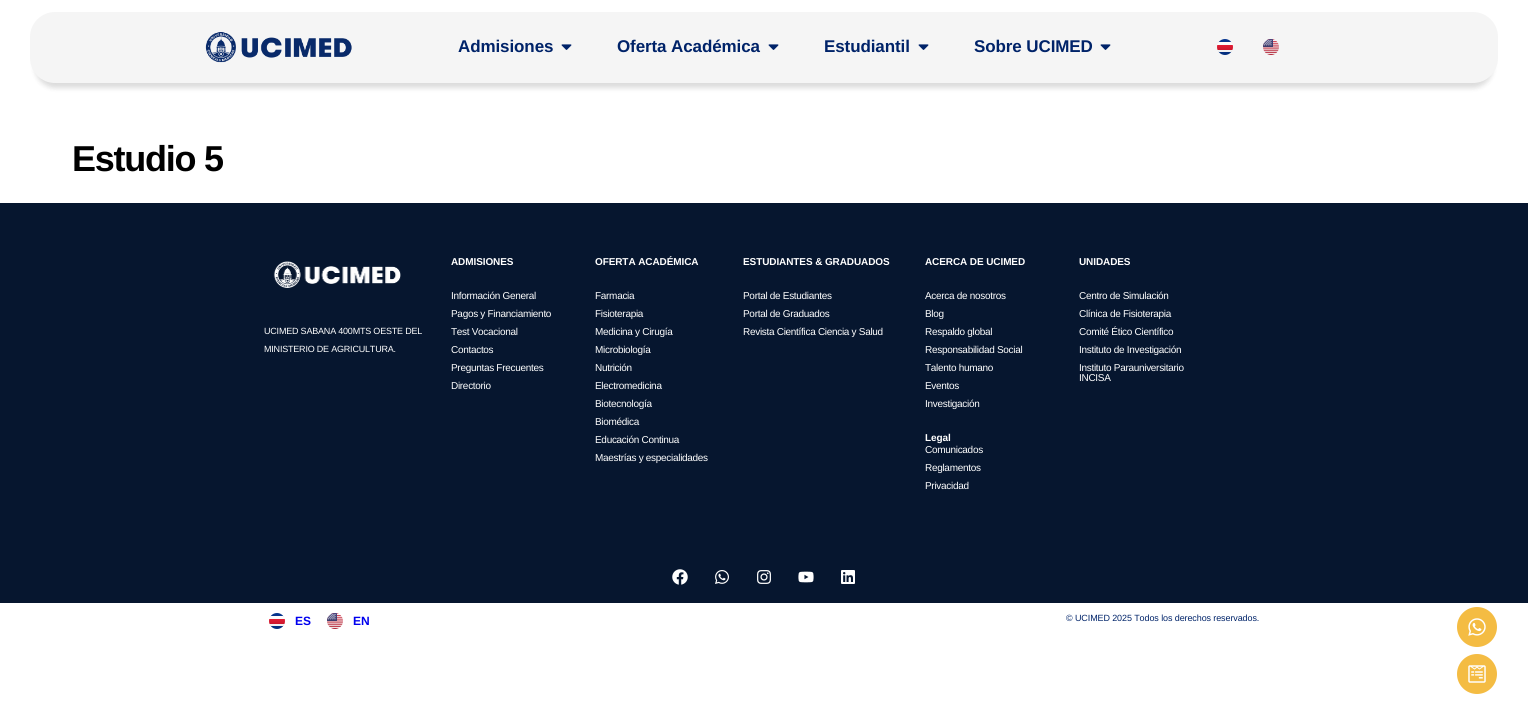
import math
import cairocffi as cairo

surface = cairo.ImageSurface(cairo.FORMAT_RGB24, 1528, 728)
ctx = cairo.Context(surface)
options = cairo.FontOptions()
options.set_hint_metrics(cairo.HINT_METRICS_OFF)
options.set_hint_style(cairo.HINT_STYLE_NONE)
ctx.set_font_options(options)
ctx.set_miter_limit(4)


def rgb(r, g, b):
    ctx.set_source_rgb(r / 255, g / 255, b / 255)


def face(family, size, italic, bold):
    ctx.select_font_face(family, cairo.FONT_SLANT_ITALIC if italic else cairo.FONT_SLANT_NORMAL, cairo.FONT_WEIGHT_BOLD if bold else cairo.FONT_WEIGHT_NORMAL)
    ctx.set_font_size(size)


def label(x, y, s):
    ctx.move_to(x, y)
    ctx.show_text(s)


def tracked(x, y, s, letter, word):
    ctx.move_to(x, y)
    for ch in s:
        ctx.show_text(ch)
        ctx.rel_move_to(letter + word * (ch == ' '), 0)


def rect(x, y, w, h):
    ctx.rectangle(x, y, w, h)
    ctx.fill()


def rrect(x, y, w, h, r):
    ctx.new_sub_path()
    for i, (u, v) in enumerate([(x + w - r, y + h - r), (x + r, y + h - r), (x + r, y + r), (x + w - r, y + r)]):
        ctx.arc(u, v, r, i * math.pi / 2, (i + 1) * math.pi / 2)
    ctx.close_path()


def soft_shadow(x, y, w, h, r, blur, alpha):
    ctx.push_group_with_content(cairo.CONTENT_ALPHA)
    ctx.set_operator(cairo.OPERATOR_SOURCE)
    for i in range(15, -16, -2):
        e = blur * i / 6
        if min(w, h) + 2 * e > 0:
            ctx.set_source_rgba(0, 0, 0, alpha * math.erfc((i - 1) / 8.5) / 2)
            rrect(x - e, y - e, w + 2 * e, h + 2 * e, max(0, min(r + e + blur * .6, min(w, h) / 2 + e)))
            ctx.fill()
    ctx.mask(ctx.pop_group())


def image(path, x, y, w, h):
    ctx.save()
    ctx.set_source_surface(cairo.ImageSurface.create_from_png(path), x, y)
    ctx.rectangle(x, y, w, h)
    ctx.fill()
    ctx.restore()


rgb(255, 255, 255)
ctx.paint()
rgb(0, 0, 0)
soft_shadow(35, 27, 1458, 61, 20, 2.5, 0.14)
rgb(245, 245, 245)
rrect(30, 12, 1468, 71, 25)
ctx.fill()
image('image0.png', 205, 32, 147, 31)
face('Liberation Sans', 17, 0, 1)
rgb(0, 35, 105)
tracked(458, 52, 'Admisiones', -0.1, 0)
image('image1.png', 561, 44, 11, 6)
tracked(617, 52, 'Oferta Académica', -0.1, 0)
image('image1.png', 768, 44, 11, 6)
tracked(824, 52, 'Estudiantil', -0.1, 0)
image('image1.png', 918, 44, 11, 6)
tracked(974, 52, 'Sobre UCIMED', -0.1, 0)
image('image1.png', 1100, 44, 11, 6)
image('image2.png', 1217, 39, 16, 16)
image('image3.png', 1263, 39, 16, 16)
rgb(244, 188, 67)
ctx.arc(1477, 627, 20, 0, 2 * math.pi)
ctx.fill()
image('image4.png', 1468, 618, 18, 18)
ctx.arc(1477, 674, 20, 0, 2 * math.pi)
ctx.fill()
image('image5.png', 1468, 665, 18, 18)
face('Liberation Sans', 36, 0, 1)
rgb(0, 0, 0)
tracked(72, 171, 'Estudio 5', -1.25, 0)
rgb(6, 22, 47)
rect(0, 203, 1528, 400)
image('image6.png', 672, 569, 16, 16)
image('image7.png', 715, 570, 14, 14)
image('image8.png', 757, 570, 14, 14)
image('image9.png', 798, 571, 16, 12)
image('image10.png', 841, 570, 14, 14)
image('image11.png', 273, 261, 128, 27)
face('Liberation Sans', 9, 0, 0)
rgb(255, 255, 255)
tracked(264, 334, 'UCIMED SABANA 400MTS OESTE DEL', -0.2, 0)
tracked(264, 352, 'MINISTERIO DE AGRICULTURA.', -0.2, 0)
face('Liberation Sans', 10, 0, 1)
tracked(451, 265, 'ADMISIONES', -0.1, 0)
face('Liberation Sans', 10, 0, 0)
tracked(451, 299, 'Información General', -0.3, 0)
tracked(451, 317, 'Pagos y Financiamiento', -0.3, 0)
tracked(451, 335, 'Test Vocacional', -0.3, 0)
tracked(451, 353, 'Contactos', -0.3, 0)
tracked(451, 371, 'Preguntas Frecuentes', -0.3, 0)
tracked(451, 389, 'Directorio', -0.3, 0)
face('Liberation Sans', 10, 0, 1)
tracked(595, 265, 'OFERTA ACADÉMICA', -0.1, 0)
face('Liberation Sans', 10, 0, 0)
tracked(595, 299, 'Farmacia', -0.3, 0)
tracked(595, 317, 'Fisioterapia', -0.3, 0)
tracked(595, 335, 'Medicina y Cirugía', -0.3, 0)
tracked(595, 353, 'Microbiología', -0.3, 0)
tracked(595, 371, 'Nutrición', -0.3, 0)
tracked(595, 389, 'Electromedicina', -0.3, 0)
tracked(595, 407, 'Biotecnología', -0.3, 0)
tracked(595, 425, 'Biomédica', -0.3, 0)
tracked(595, 443, 'Educación Continua', -0.3, 0)
tracked(595, 461, 'Maestrías y especialidades', -0.3, 0)
face('Liberation Sans', 10, 0, 1)
tracked(743, 265, 'ESTUDIANTES & GRADUADOS', -0.1, 0)
face('Liberation Sans', 10, 0, 0)
tracked(743, 299, 'Portal de Estudiantes', -0.3, 0)
tracked(743, 317, 'Portal de Graduados', -0.3, 0)
tracked(743, 335, 'Revista Científica Ciencia y Salud', -0.3, 0)
face('Liberation Sans', 10, 0, 1)
tracked(925, 265, 'ACERCA DE UCIMED', -0.1, 0)
face('Liberation Sans', 10, 0, 0)
tracked(925, 299, 'Acerca de nosotros', -0.3, 0)
tracked(925, 317, 'Blog', -0.3, 0)
tracked(925, 335, 'Respaldo global', -0.3, 0)
tracked(925, 353, 'Responsabilidad Social', -0.3, 0)
tracked(925, 371, 'Talento humano', -0.3, 0)
tracked(925, 389, 'Eventos', -0.3, 0)
tracked(925, 407, 'Investigación', -0.3, 0)
face('Liberation Sans', 10, 0, 1)
tracked(925, 441, 'Legal', -0.1, 0)
face('Liberation Sans', 10, 0, 0)
tracked(925, 453, 'Comunicados', -0.3, 0)
tracked(925, 471, 'Reglamentos', -0.3, 0)
tracked(925, 489, 'Privacidad', -0.3, 0)
face('Liberation Sans', 10, 0, 1)
tracked(1079, 265, 'UNIDADES', -0.1, 0)
face('Liberation Sans', 10, 0, 0)
tracked(1079, 299, 'Centro de Simulación', -0.3, 0)
tracked(1079, 317, 'Clínica de Fisioterapia', -0.3, 0)
tracked(1079, 335, 'Comité Ético Científico', -0.3, 0)
tracked(1079, 353, 'Instituto de Investigación', -0.3, 0)
tracked(1079, 371, 'Instituto Parauniversitario', -0.3, 0)
tracked(1079, 381, 'INCISA', -0.3, 0)
image('image12.png', 269, 613, 16, 16)
face('Liberation Sans', 12, 0, 1)
rgb(0, 0, 238)
label(295, 625, 'ES')
image('image13.png', 327, 613, 16, 16)
label(353, 625, 'EN')
face('Liberation Sans', 9, 0, 0)
rgb(0, 35, 105)
tracked(1066, 621, '© UCIMED 2025 Todos los derechos reservados.', -0.1, 0)
surface.write_to_png('render.png')
